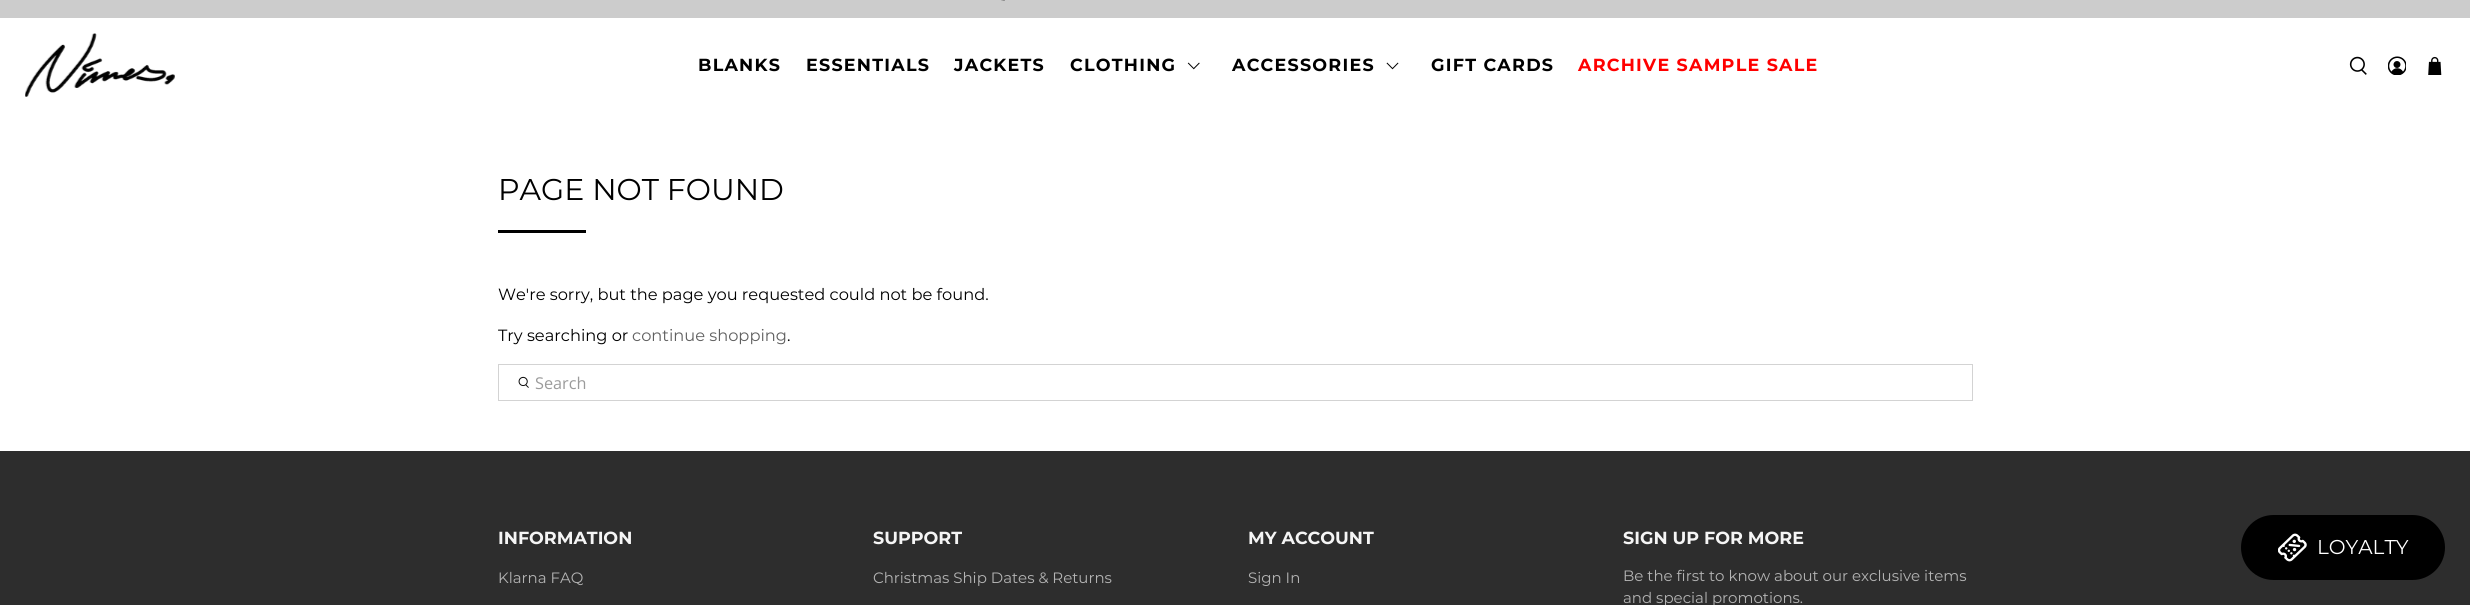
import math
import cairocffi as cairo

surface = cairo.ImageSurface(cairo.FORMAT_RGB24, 2470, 605)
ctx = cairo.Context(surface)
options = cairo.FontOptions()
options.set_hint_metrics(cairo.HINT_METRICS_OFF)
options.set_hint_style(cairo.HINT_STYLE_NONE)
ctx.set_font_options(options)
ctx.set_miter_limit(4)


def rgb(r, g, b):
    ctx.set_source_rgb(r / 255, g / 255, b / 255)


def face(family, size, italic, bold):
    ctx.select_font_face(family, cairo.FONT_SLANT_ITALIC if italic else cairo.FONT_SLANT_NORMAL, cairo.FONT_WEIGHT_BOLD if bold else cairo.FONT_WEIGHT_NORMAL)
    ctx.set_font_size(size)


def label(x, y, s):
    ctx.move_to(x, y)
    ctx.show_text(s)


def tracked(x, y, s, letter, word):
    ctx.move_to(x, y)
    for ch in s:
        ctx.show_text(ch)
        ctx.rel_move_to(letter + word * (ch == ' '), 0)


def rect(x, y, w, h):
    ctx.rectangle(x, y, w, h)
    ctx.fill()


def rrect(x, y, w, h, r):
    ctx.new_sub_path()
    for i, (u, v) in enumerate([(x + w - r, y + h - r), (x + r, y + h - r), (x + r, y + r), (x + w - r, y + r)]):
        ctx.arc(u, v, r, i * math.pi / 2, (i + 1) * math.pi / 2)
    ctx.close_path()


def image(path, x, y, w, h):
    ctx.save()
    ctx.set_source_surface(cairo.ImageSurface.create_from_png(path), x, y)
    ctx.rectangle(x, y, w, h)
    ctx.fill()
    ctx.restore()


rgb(255, 255, 255)
ctx.paint()
rgb(204, 204, 204)
rect(0, 0, 2470, 18)
image('image0.png', 1001, 0, 4, 1)
image('image1.png', 25, 33, 150, 64)
face('Montserrat', 17.5, 0, 1)
rgb(0, 0, 0)
tracked(698, 71, 'BLANKS', 1.25, 0)
tracked(806, 71, 'ESSENTIALS', 1.25, 0)
tracked(954, 71, 'JACKETS', 1.25, 0)
tracked(1070, 71, 'CLOTHING', 1.25, 0)
image('image2.png', 1187, 62, 13, 8)
tracked(1232, 71, 'ACCESSORIES', 1.25, 0)
image('image3.png', 1386, 62, 13, 8)
tracked(1431, 71, 'GIFT CARDS', 1.25, 0)
rgb(255, 0, 0)
tracked(1578, 71, 'ARCHIVE SAMPLE SALE', 1.25, 0)
image('image4.png', 2349, 56, 18, 19)
image('image5.png', 2388, 56, 18, 19)
image('image6.png', 2428, 56, 14, 19)
face('Montserrat', 30, 0, 0)
rgb(0, 0, 0)
label(498, 200, 'PAGE NOT FOUND')
rect(498, 230, 88, 3)
face('Montserrat', 16.25, 0, 0)
label(498, 300, 'We\'re sorry, but the page you requested could not be found.')
label(498, 341, 'Try searching or')
rgb(96, 96, 96)
label(632, 341, 'continue shopping')
rgb(0, 0, 0)
label(787, 341, '.')
ctx.rectangle(498.5, 364.5, 1474, 36)
rgb(211, 211, 211)
ctx.set_line_width(1)
ctx.stroke()
image('image7.png', 518, 376, 11, 12)
face('Open Sans', 16.25, 0, 0)
rgb(155, 155, 155)
label(535, 389, 'Search')
rgb(45, 45, 45)
rect(0, 451, 2470, 154)
face('Montserrat', 17.5, 0, 1)
rgb(245, 245, 245)
label(498, 544, 'INFORMATION')
face('Montserrat', 15, 0, 0)
rgb(180, 180, 180)
label(498, 583, 'Klarna FAQ')
face('Montserrat', 17.5, 0, 1)
rgb(245, 245, 245)
label(873, 544, 'SUPPORT')
face('Montserrat', 15, 0, 0)
rgb(180, 180, 180)
label(873, 583, 'Christmas Ship Dates & Returns')
face('Montserrat', 17.5, 0, 1)
rgb(245, 245, 245)
label(1248, 544, 'MY ACCOUNT')
face('Montserrat', 15, 0, 0)
rgb(180, 180, 180)
label(1248, 583, 'Sign In')
face('Montserrat', 17.5, 0, 1)
rgb(245, 245, 245)
label(1623, 544, 'SIGN UP FOR MORE')
face('Montserrat', 15, 0, 0)
rgb(180, 180, 180)
label(1623, 581, 'Be the first to know about our exclusive items')
label(1623, 603, 'and special promotions.')
rgb(0, 0, 0)
rrect(2241, 515, 204, 65, 32.5)
ctx.fill()
image('image8.png', 2278, 533, 29, 29)
face('Montserrat', 20, 0, 0)
rgb(255, 255, 255)
label(2317, 554, 'LOYALTY')
surface.write_to_png('render.png')
